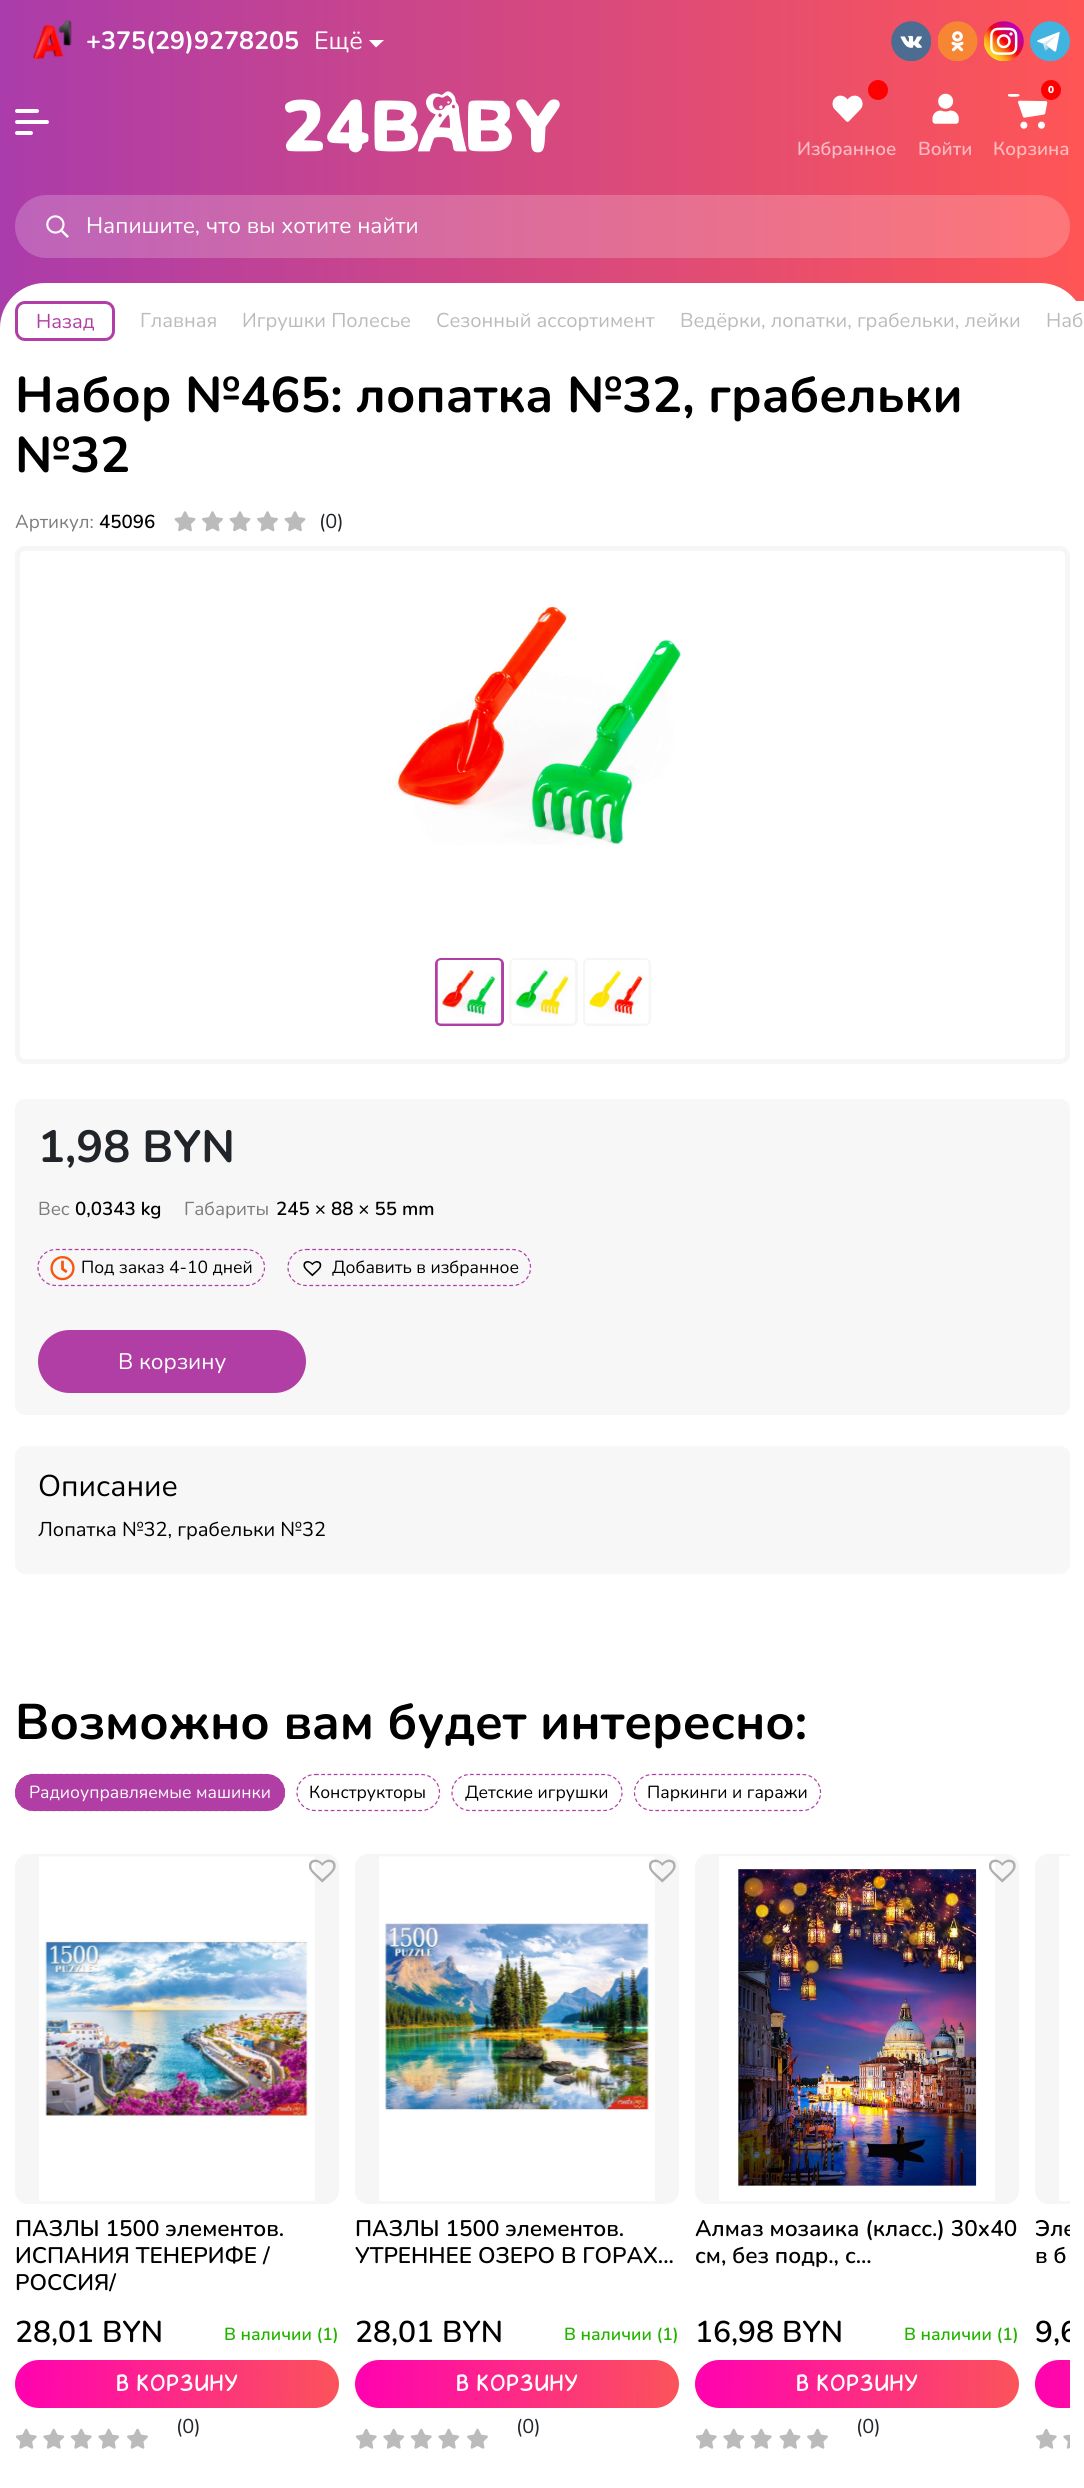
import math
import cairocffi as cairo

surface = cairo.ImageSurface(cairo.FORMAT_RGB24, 1084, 2488)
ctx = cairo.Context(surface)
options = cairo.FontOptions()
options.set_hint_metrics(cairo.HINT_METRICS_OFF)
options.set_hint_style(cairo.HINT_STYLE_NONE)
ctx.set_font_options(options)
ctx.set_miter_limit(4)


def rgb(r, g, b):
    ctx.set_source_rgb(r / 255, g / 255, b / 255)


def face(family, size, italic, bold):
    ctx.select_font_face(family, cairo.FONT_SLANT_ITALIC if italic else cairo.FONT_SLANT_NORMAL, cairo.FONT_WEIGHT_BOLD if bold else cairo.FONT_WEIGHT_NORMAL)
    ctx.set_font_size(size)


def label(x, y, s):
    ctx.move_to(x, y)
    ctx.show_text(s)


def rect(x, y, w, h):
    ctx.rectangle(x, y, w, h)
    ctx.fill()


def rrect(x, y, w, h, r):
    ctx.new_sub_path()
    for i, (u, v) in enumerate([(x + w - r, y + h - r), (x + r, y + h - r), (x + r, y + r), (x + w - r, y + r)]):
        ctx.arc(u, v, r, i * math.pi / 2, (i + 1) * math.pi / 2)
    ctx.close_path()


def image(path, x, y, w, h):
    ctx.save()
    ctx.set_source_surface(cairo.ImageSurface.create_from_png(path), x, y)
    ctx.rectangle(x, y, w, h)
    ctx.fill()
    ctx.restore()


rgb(255, 255, 255)
ctx.paint()
gradient = cairo.LinearGradient(0, 1882, 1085, 1882)
gradient.add_color_stop_rgba(0, 0.671, 0.235, 0.671, 1)
gradient.add_color_stop_rgba(1, 1, 0.333, 0.333, 1)
ctx.set_source(gradient)
rect(0, 0, 1084, 328)
image('image0.png', 32, 20, 40, 40)
face('Nunito', 25, 0, 1)
rgb(255, 255, 255)
label(86, 49, '+375(29)9278205')
face('Nunito', 25, 0, 0)
label(314, 49, 'Ещё')
ctx.new_path()
ctx.move_to(369, 40)
ctx.line_to(384, 40)
ctx.line_to(376, 47.5)
ctx.close_path()
ctx.fill()
image('image1.png', 891, 21, 40, 40)
image('image2.png', 938, 21, 40, 40)
image('image3.png', 984, 21, 40, 40)
image('image4.png', 1030, 21, 40, 40)
rrect(15, 109, 24, 4, 2)
ctx.fill()
rrect(15, 120, 34, 4, 2)
ctx.fill()
rrect(15, 131, 18, 4, 2)
ctx.fill()
image('image5.png', 285, 91, 275, 62)
rgb(255, 0, 0)
ctx.arc(878, 90, 10, 0, 2 * math.pi)
ctx.fill()
image('image6.png', 832, 95, 31, 27)
face('Nunito SemiBold', 18.75, 0, 0)
rgb(248, 185, 195)
label(797, 155, 'Избранное')
image('image7.png', 932, 93, 27, 31)
label(918, 155, 'Войти')
image('image8.png', 1008, 94, 40, 35)
rgb(255, 0, 0)
ctx.arc(1051, 90, 10, 0, 2 * math.pi)
ctx.fill()
face('Nunito Black', 10, 0, 0)
rgb(255, 255, 255)
label(1048, 93, '0')
face('Nunito SemiBold', 18.75, 0, 0)
rgb(253, 187, 189)
label(993, 155, 'Корзина')
ctx.set_source_rgba(1, 1, 1, 0.2)
rrect(15, 195, 1055, 63, 31.5)
ctx.fill()
image('image9.png', 46, 215, 23, 23)
face('Nunito', 22.5, 0, 0)
rgb(255, 255, 255)
label(86, 233, 'Напишите, что вы хотите найти')
rrect(0, 283, 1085, 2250, 45)
ctx.fill()
rect(1076, 301, 8, 18)
rrect(16.5, 302.5, 97, 37, 8.5)
rgb(177, 62, 164)
ctx.set_line_width(3)
ctx.stroke()
face('Nunito', 20, 0, 0)
label(36, 328, 'Назад')
rgb(187, 187, 187)
label(140, 327, 'Главная')
label(242, 327, 'Игрушки Полесье')
label(436, 327, 'Сезонный ассортимент')
label(680, 327, 'Ведёрки, лопатки, грабельки, лейки')
label(1046, 327, 'Наб')
face('Nunito', 50, 0, 1)
rgb(0, 0, 0)
label(15, 412, 'Набор №465: лопатка №32, грабельки')
label(15, 472, '№32')
face('Nunito', 18.75, 0, 0)
rgb(124, 124, 124)
label(15, 528, 'Артикул:')
face('Nunito SemiBold', 18.75, 0, 0)
rgb(0, 0, 0)
label(99, 528, '45096')
image('image10.png', 174, 511, 22, 21)
image('image11.png', 202, 511, 21, 21)
image('image10.png', 229, 511, 22, 21)
image('image11.png', 257, 511, 21, 21)
image('image10.png', 284, 511, 22, 21)
face('Nunito', 20, 0, 0)
rgb(33, 37, 41)
label(319, 528, '(0)')
rrect(17.5, 548.5, 1050, 513, 7.5)
rgb(246, 246, 246)
ctx.set_line_width(5)
ctx.stroke()
image('image12.png', 394, 606, 287, 239)
rrect(436.5, 959.5, 66, 65, 4.5)
rgb(177, 62, 164)
ctx.set_line_width(3)
ctx.stroke()
image('image13.png', 437, 960, 65, 64)
rrect(510.5, 959.5, 66, 65, 4.5)
rgb(246, 246, 246)
ctx.stroke()
image('image14.png', 511, 960, 63, 64)
rrect(584.5, 959.5, 65, 65, 4.5)
ctx.stroke()
image('image15.png', 585, 960, 64, 64)
rgb(247, 247, 247)
rrect(15, 1099, 1055, 316, 10)
ctx.fill()
face('Nunito', 45, 0, 1)
rgb(33, 37, 41)
label(38, 1162, '1,98 BYN')
face('Nunito', 18.75, 0, 0)
rgb(124, 124, 124)
label(38, 1215, 'Вес')
face('Nunito SemiBold', 18.75, 0, 0)
rgb(0, 0, 0)
label(75, 1215, '0,0343 kg')
face('Nunito', 18.75, 0, 0)
rgb(124, 124, 124)
label(184, 1215, 'Габариты')
face('Nunito SemiBold', 18.75, 0, 0)
rgb(0, 0, 0)
label(276, 1215, '245 × 88 × 55 mm')
ctx.new_path()
ctx.move_to(56, 1249.5)
ctx.line_to(246, 1249.5)
ctx.curve_to(256.5, 1249.5, 264.5, 1257.5, 264.5, 1267.5)
ctx.curve_to(264.5, 1277.5, 256.5, 1285.5, 246, 1285.5)
ctx.line_to(56, 1285.5)
ctx.curve_to(46, 1285.5, 38, 1277.5, 38, 1267.5)
ctx.curve_to(38, 1257.5, 46, 1249.5, 56, 1249.5)
ctx.close_path()
rgb(176, 62, 166)
ctx.set_line_width(1.2)
ctx.set_dash([3.75, 2.5])
ctx.stroke()
image('image16.png', 50, 1256, 25, 25)
face('Nunito', 17.5, 0, 0)
rgb(0, 0, 0)
label(81, 1273, 'Под заказ 4-10 дней')
ctx.new_path()
ctx.move_to(306, 1249.5)
ctx.line_to(512.5, 1249.5)
ctx.curve_to(522.5, 1249.5, 530.5, 1257.5, 530.5, 1267.5)
ctx.curve_to(530.5, 1277.5, 522.5, 1285.5, 512.5, 1285.5)
ctx.line_to(306, 1285.5)
ctx.curve_to(296, 1285.5, 288, 1277.5, 288, 1267.5)
ctx.curve_to(288, 1257.5, 296, 1249.5, 306, 1249.5)
ctx.close_path()
rgb(176, 62, 166)
ctx.stroke()
image('image17.png', 303, 1261, 19, 16)
rgb(0, 0, 0)
label(332, 1273, 'Добавить в избранное')
rgb(177, 62, 164)
rrect(38, 1330, 268, 63, 31.5)
ctx.fill()
face('Nunito', 22.5, 0, 0)
rgb(255, 255, 255)
label(118, 1369, 'В корзину')
rgb(247, 247, 247)
rrect(15, 1446, 1055, 128, 10)
ctx.fill()
face('Nunito', 30, 0, 0)
rgb(0, 0, 0)
label(38, 1496, 'Описание')
face('Nunito', 20, 0, 0)
label(38, 1536, 'Лопатка №32, грабельки №32')
face('Nunito', 50, 0, 1)
label(15, 1739, 'Возможно вам будет интересно:')
rgb(177, 62, 164)
rrect(15, 1774, 270, 37, 18.5)
ctx.fill()
ctx.new_path()
ctx.move_to(34, 1774.5)
ctx.line_to(266, 1774.5)
ctx.curve_to(276.5, 1774.5, 284.5, 1782.5, 284.5, 1792.5)
ctx.curve_to(284.5, 1802.5, 276.5, 1810.5, 266, 1810.5)
ctx.line_to(34, 1810.5)
ctx.curve_to(23.5, 1810.5, 15.5, 1802.5, 15.5, 1792.5)
ctx.curve_to(15.5, 1782.5, 23.5, 1774.5, 34, 1774.5)
ctx.close_path()
ctx.stroke()
face('Nunito', 17.5, 0, 0)
rgb(255, 255, 255)
label(29, 1798, 'Радиоуправляемые машинки')
ctx.new_path()
ctx.move_to(315, 1774.5)
ctx.line_to(421, 1774.5)
ctx.curve_to(431.5, 1774.5, 439.5, 1782.5, 439.5, 1792.5)
ctx.curve_to(439.5, 1802.5, 431.5, 1810.5, 421, 1810.5)
ctx.line_to(315, 1810.5)
ctx.curve_to(305, 1810.5, 297, 1802.5, 297, 1792.5)
ctx.curve_to(297, 1782.5, 305, 1774.5, 315, 1774.5)
ctx.close_path()
rgb(177, 62, 164)
ctx.stroke()
rgb(0, 0, 0)
label(309, 1798, 'Конструкторы')
ctx.new_path()
ctx.move_to(470, 1774.5)
ctx.line_to(604, 1774.5)
ctx.curve_to(614, 1774.5, 622, 1782.5, 622, 1792.5)
ctx.curve_to(622, 1802.5, 614, 1810.5, 604, 1810.5)
ctx.line_to(470, 1810.5)
ctx.curve_to(460, 1810.5, 452, 1802.5, 452, 1792.5)
ctx.curve_to(452, 1782.5, 460, 1774.5, 470, 1774.5)
ctx.close_path()
rgb(177, 62, 164)
ctx.stroke()
rgb(0, 0, 0)
label(465, 1798, 'Детские игрушки')
ctx.new_path()
ctx.move_to(652.5, 1774.5)
ctx.line_to(802.5, 1774.5)
ctx.curve_to(812.5, 1774.5, 820.5, 1782.5, 820.5, 1792.5)
ctx.curve_to(820.5, 1802.5, 812.5, 1810.5, 802.5, 1810.5)
ctx.line_to(652.5, 1810.5)
ctx.curve_to(642.5, 1810.5, 634.5, 1802.5, 634.5, 1792.5)
ctx.curve_to(634.5, 1782.5, 642.5, 1774.5, 652.5, 1774.5)
ctx.close_path()
rgb(177, 62, 164)
ctx.stroke()
rgb(0, 0, 0)
label(647, 1798, 'Паркинги и гаражи')
rgb(246, 246, 246)
rrect(15, 1854, 324, 350, 13)
ctx.fill()
image('image18.png', 39, 1856, 276, 345)
image('image19.png', 309, 1859, 27, 24)
face('Nunito SemiBold', 22.5, 0, 0)
rgb(0, 0, 0)
label(15, 2236, 'ПАЗЛЫ 1500 элементов.')
label(15, 2263, 'ИСПАНИЯ ТЕНЕРИФЕ /')
label(15, 2290, 'РОССИЯ/')
face('Nunito SemiBold', 30, 0, 0)
label(15, 2342, '28,01 BYN')
face('Nunito SemiBold', 17.5, 0, 0)
rgb(36, 180, 0)
label(224, 2340, 'В наличии (1)')
gradient = cairo.LinearGradient(14, 2379, 339, 2388)
gradient.add_color_stop_rgba(0.03, 1, 0.012, 0.686, 1)
gradient.add_color_stop_rgba(1, 0.984, 0.329, 0.353, 1)
ctx.set_source(gradient)
rrect(15, 2360, 324, 48, 24)
ctx.fill()
face('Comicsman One', 20, 0, 0)
rgb(255, 255, 255)
label(116, 2391, 'В корзину')
image('image20.png', 15, 2428, 22, 21)
image('image21.png', 43, 2428, 22, 21)
image('image20.png', 70, 2428, 22, 21)
image('image21.png', 98, 2428, 22, 21)
image('image22.png', 127, 2428, 21, 21)
face('Nunito', 20, 0, 0)
rgb(33, 37, 41)
label(176, 2433, '(0)')
rgb(246, 246, 246)
rrect(355, 1854, 324, 350, 13)
ctx.fill()
image('image23.png', 379, 1856, 276, 345)
image('image24.png', 649, 1859, 27, 24)
face('Nunito SemiBold', 22.5, 0, 0)
rgb(0, 0, 0)
label(355, 2236, 'ПАЗЛЫ 1500 элементов.')
label(355, 2263, 'УТРЕННЕЕ ОЗЕРО В ГОРАХ...')
face('Nunito SemiBold', 30, 0, 0)
label(355, 2342, '28,01 BYN')
face('Nunito SemiBold', 17.5, 0, 0)
rgb(36, 180, 0)
label(564, 2340, 'В наличии (1)')
gradient = cairo.LinearGradient(354, 2379, 679, 2388)
gradient.add_color_stop_rgba(0.03, 1, 0.012, 0.686, 1)
gradient.add_color_stop_rgba(1, 0.984, 0.329, 0.353, 1)
ctx.set_source(gradient)
rrect(355, 2360, 324, 48, 24)
ctx.fill()
face('Comicsman One', 20, 0, 0)
rgb(255, 255, 255)
label(456, 2391, 'В корзину')
image('image20.png', 355, 2428, 22, 21)
image('image21.png', 383, 2428, 22, 21)
image('image20.png', 410, 2428, 22, 21)
image('image21.png', 438, 2428, 22, 21)
image('image22.png', 467, 2428, 21, 21)
face('Nunito', 20, 0, 0)
rgb(33, 37, 41)
label(516, 2433, '(0)')
rgb(246, 246, 246)
rrect(695, 1854, 324, 350, 13)
ctx.fill()
image('image25.png', 719, 1856, 276, 345)
image('image26.png', 989, 1859, 27, 24)
face('Nunito SemiBold', 22.5, 0, 0)
rgb(0, 0, 0)
label(695, 2236, 'Алмаз мозаика (класс.) 30х40')
label(695, 2263, 'см, без подр., с...')
face('Nunito SemiBold', 30, 0, 0)
label(695, 2342, '16,98 BYN')
face('Nunito SemiBold', 17.5, 0, 0)
rgb(36, 180, 0)
label(904, 2340, 'В наличии (1)')
gradient = cairo.LinearGradient(694, 2379, 1019, 2388)
gradient.add_color_stop_rgba(0.03, 1, 0.012, 0.686, 1)
gradient.add_color_stop_rgba(1, 0.984, 0.329, 0.353, 1)
ctx.set_source(gradient)
rrect(695, 2360, 324, 48, 24)
ctx.fill()
face('Comicsman One', 20, 0, 0)
rgb(255, 255, 255)
label(796, 2391, 'В корзину')
image('image20.png', 695, 2428, 22, 21)
image('image21.png', 723, 2428, 22, 21)
image('image20.png', 750, 2428, 22, 21)
image('image27.png', 779, 2428, 22, 21)
image('image22.png', 807, 2428, 21, 21)
face('Nunito', 20, 0, 0)
rgb(33, 37, 41)
label(856, 2433, '(0)')
rgb(246, 246, 246)
ctx.new_path()
ctx.move_to(1048, 1854)
ctx.line_to(1070, 1854)
ctx.line_to(1070, 2204)
ctx.line_to(1048, 2204)
ctx.curve_to(1041, 2204, 1035, 2198, 1035, 2191)
ctx.line_to(1035, 1867)
ctx.curve_to(1035, 1860, 1041, 1854, 1048, 1854)
ctx.close_path()
ctx.fill()
rgb(255, 255, 255)
rect(1059, 1856, 11, 345)
ctx.save()
ctx.rectangle(1035, 2216, 35, 54)
ctx.clip()
face('Nunito SemiBold', 22.5, 0, 0)
rgb(0, 0, 0)
label(1035, 2236, 'Эле')
ctx.restore()
face('Nunito SemiBold', 22.5, 0, 0)
rgb(0, 0, 0)
label(1035, 2263, 'в б')
ctx.save()
ctx.rectangle(15, 1854, 1055, 601)
ctx.clip()
face('Nunito SemiBold', 30, 0, 0)
label(1035, 2342, '9,6')
ctx.restore()
gradient = cairo.LinearGradient(1034, 2379, 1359, 2388)
gradient.add_color_stop_rgba(0.03, 1, 0.012, 0.686, 1)
gradient.add_color_stop_rgba(1, 0.984, 0.329, 0.353, 1)
ctx.set_source(gradient)
ctx.new_path()
ctx.move_to(1059, 2360)
ctx.line_to(1070, 2360)
ctx.line_to(1070, 2408)
ctx.line_to(1059, 2408)
ctx.curve_to(1045.5, 2408, 1035, 2397.5, 1035, 2384)
ctx.curve_to(1035, 2370.5, 1045.5, 2360, 1059, 2360)
ctx.close_path()
ctx.fill()
image('image20.png', 1035, 2428, 22, 21)
image('image28.png', 1063, 2434, 7, 15)
surface.write_to_png('render.png')
